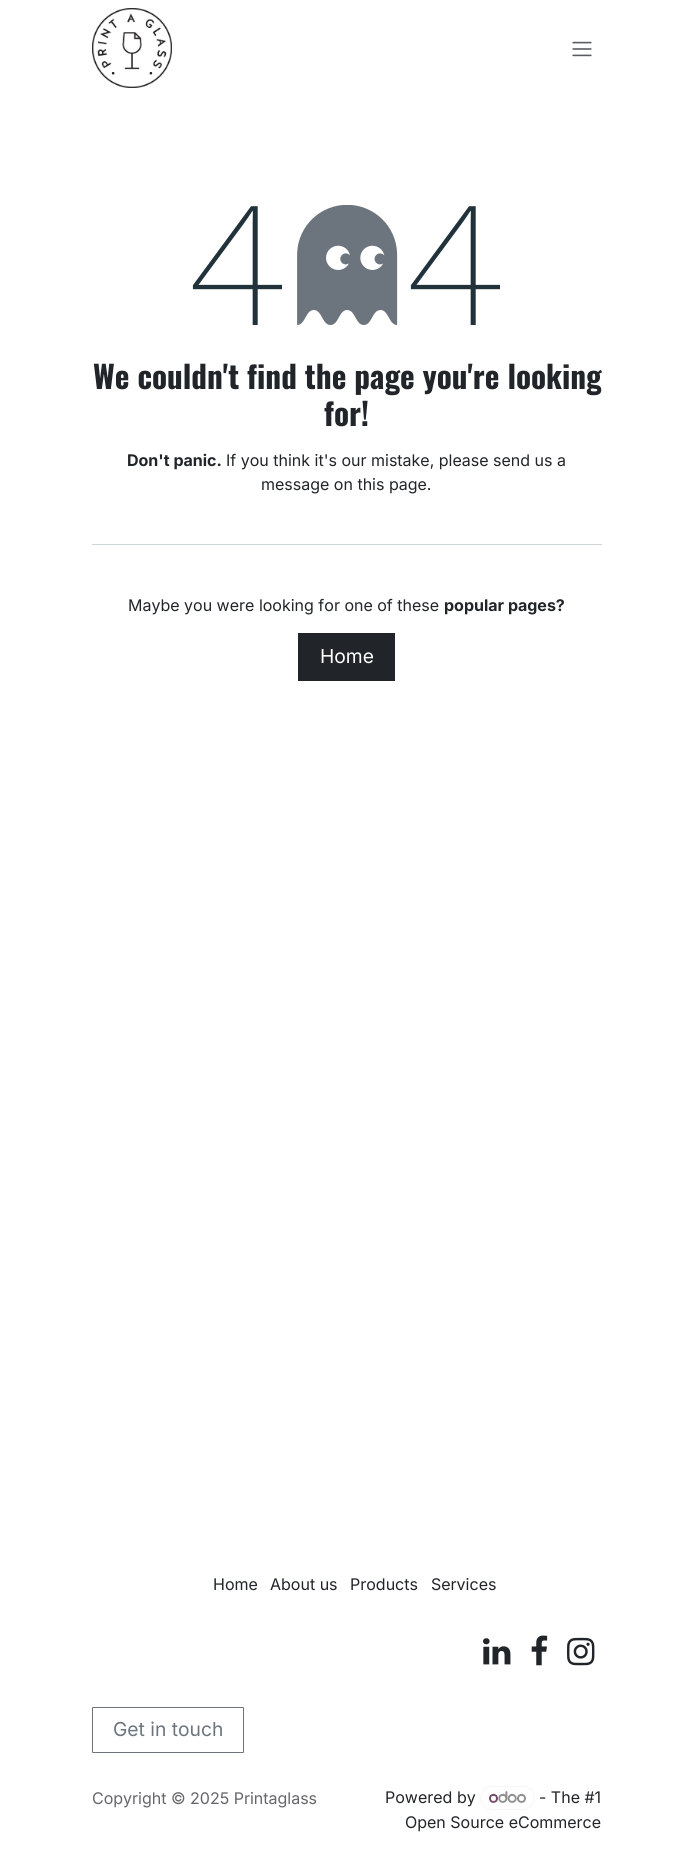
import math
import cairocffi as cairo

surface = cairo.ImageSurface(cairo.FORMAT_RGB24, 693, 1850)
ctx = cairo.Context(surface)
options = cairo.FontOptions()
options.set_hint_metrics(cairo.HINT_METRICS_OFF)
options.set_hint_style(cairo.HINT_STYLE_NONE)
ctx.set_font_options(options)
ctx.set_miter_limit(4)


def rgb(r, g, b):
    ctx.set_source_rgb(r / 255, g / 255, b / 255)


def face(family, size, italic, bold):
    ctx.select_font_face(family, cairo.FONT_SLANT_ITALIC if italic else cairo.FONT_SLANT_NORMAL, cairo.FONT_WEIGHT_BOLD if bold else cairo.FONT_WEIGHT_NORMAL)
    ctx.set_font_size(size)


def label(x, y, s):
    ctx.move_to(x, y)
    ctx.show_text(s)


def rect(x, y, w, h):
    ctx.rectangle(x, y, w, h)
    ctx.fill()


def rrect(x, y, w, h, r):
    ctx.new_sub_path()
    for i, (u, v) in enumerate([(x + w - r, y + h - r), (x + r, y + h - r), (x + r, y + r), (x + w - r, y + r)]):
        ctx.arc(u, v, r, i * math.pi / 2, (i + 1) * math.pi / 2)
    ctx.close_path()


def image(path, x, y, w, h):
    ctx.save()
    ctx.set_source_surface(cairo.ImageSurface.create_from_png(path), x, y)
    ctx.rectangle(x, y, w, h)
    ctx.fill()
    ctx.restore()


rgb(255, 255, 255)
ctx.paint()
image('image0.png', 92, 8, 80, 80)
image('image1.png', 572, 41, 20, 16)
image('image2.png', 192, 205, 308, 120)
face('Oswald', 31.2, 0, 1)
rgb(33, 37, 41)
label(93, 389, 'We couldn\'t find the page you\'re looking')
label(324, 426, 'for!')
face('Inter', 16, 0, 1)
label(127, 466, 'Don\'t panic.')
face('Inter', 16, 0, 0)
label(226, 466, 'If you think it\'s our mistake, please send us a')
label(261, 490, 'message on this page.')
rgb(206, 212, 218)
rect(92, 544, 510, 1)
rgb(33, 37, 41)
label(128, 611, 'Maybe you were looking for one of these')
face('Inter', 16, 0, 1)
label(444, 611, 'popular pages?')
ctx.rectangle(299, 634, 95, 46)
ctx.fill_preserve()
ctx.stroke()
face('Inter', 19.25, 0, 0)
rgb(255, 255, 255)
label(320, 663, 'Home')
face('Inter', 16, 0, 0)
rgb(33, 37, 41)
label(213, 1590, 'Home')
label(270, 1590, 'About us')
label(350, 1590, 'Products')
label(431, 1590, 'Services')
image('image3.png', 483, 1638, 28, 27)
image('image4.png', 531, 1635, 17, 31)
image('image5.png', 567, 1637, 28, 29)
rrect(92.5, 1707.5, 151, 45, 0.5)
rgb(108, 117, 125)
ctx.set_line_width(1)
ctx.stroke()
face('Inter', 19.25, 0, 0)
label(113, 1736, 'Get in touch')
face('Inter', 16, 0, 0)
rgb(100, 102, 105)
label(92, 1804, 'Copyright © 2025 Printaglass')
rgb(33, 37, 41)
label(385, 1803, 'Powered by')
rrect(480.5, 1786.5, 54, 23, 11.5)
rgb(247, 246, 246)
ctx.stroke()
image('image6.png', 489, 1791, 37, 12)
rgb(33, 37, 41)
label(539, 1803, '- The #1')
label(405, 1828, 'Open Source eCommerce')
surface.write_to_png('render.png')
